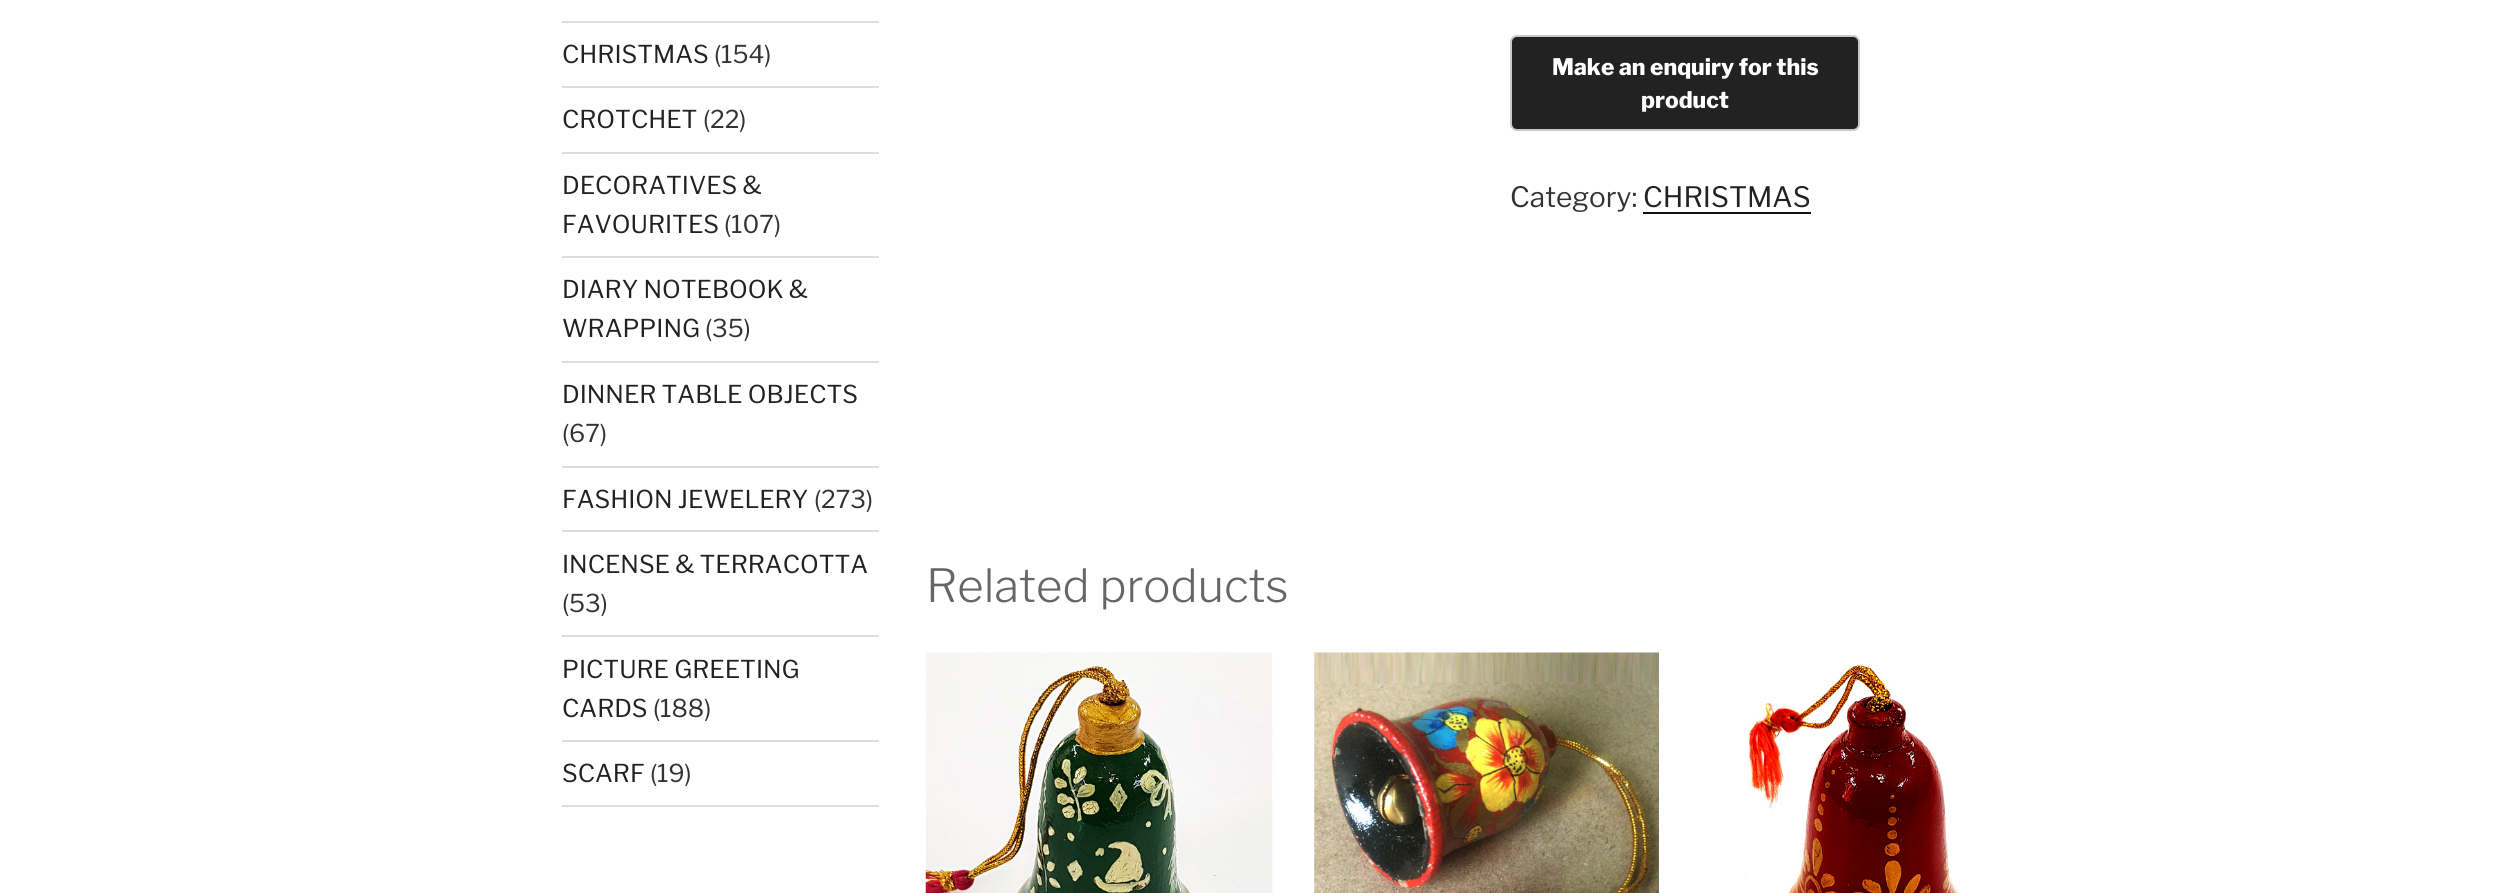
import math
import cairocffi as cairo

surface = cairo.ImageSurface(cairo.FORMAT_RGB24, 2516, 893)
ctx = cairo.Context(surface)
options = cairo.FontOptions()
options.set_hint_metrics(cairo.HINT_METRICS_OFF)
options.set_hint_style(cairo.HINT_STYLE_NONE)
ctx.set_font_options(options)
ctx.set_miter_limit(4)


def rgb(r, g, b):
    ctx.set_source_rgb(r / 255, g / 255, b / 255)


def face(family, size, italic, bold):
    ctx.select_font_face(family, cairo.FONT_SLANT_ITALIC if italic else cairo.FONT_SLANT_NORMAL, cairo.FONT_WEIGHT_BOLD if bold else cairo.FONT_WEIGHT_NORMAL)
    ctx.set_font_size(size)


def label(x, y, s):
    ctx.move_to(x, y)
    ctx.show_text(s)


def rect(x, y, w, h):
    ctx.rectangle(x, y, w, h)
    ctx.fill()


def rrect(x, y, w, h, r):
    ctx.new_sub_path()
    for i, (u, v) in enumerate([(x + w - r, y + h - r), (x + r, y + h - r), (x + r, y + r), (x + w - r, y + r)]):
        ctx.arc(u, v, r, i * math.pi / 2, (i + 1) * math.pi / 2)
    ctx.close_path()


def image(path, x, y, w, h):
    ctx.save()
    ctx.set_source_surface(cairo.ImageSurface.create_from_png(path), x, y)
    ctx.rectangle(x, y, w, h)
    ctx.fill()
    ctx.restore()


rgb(255, 255, 255)
ctx.paint()
rgb(221, 221, 221)
rect(562, 21, 317, 2)
rect(562, 86, 317, 2)
face('Libre Franklin Thin', 24.5, 0, 0)
rgb(34, 34, 34)
label(562, 63, 'CHRISTMAS')
rgb(51, 51, 51)
label(714, 63, '(154)')
rgb(221, 221, 221)
rect(562, 152, 317, 2)
rgb(34, 34, 34)
label(562, 128, 'CROTCHET')
rgb(51, 51, 51)
label(703, 128, '(22)')
rgb(221, 221, 221)
rect(562, 256, 317, 2)
rgb(34, 34, 34)
label(562, 194, 'DECORATIVES &')
label(562, 233, 'FAVOURITES')
rgb(51, 51, 51)
label(724, 233, '(107)')
rgb(221, 221, 221)
rect(562, 361, 317, 2)
rgb(34, 34, 34)
label(562, 298, 'DIARY NOTEBOOK &')
label(562, 337, 'WRAPPING')
rgb(51, 51, 51)
label(705, 337, '(35)')
rgb(221, 221, 221)
rect(562, 466, 317, 2)
rgb(34, 34, 34)
label(562, 403, 'DINNER TABLE OBJECTS')
rgb(51, 51, 51)
label(562, 442, '(67)')
rgb(221, 221, 221)
rect(562, 530, 317, 2)
rgb(34, 34, 34)
label(562, 508, 'FASHION JEWELERY')
rgb(51, 51, 51)
label(814, 508, '(273)')
rgb(221, 221, 221)
rect(562, 635, 317, 2)
rgb(34, 34, 34)
label(562, 573, 'INCENSE & TERRACOTTA')
rgb(51, 51, 51)
label(562, 612, '(53)')
rgb(221, 221, 221)
rect(562, 740, 317, 2)
rgb(34, 34, 34)
label(562, 678, 'PICTURE GREETING')
label(562, 717, 'CARDS')
rgb(51, 51, 51)
label(653, 717, '(188)')
rgb(221, 221, 221)
rect(562, 805, 317, 2)
rgb(34, 34, 34)
label(562, 782, 'SCARF')
rgb(51, 51, 51)
label(650, 782, '(19)')
rgb(34, 34, 34)
rrect(1511, 36, 348, 94, 6)
ctx.fill_preserve()
rgb(202, 201, 201)
ctx.stroke()
face('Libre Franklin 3 Thin', 22.75, 0, 0)
rgb(255, 255, 255)
label(1552, 75, 'Make an enquiry for this')
label(1641, 108, 'product')
face('Libre Franklin Thin', 28, 0, 0)
rgb(51, 51, 51)
label(1510, 207, 'Category:')
rgb(34, 34, 34)
label(1643, 207, 'CHRISTMAS')
rgb(15, 15, 15)
rect(1643, 212, 168, 2)
face('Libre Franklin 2 Thin', 45.5, 0, 0)
rgb(102, 102, 102)
label(926, 602, 'Related products')
image('image0.png', 925, 652, 348, 241)
image('image1.png', 1314, 652, 345, 241)
image('image2.png', 1744, 665, 214, 228)
surface.write_to_png('render.png')
